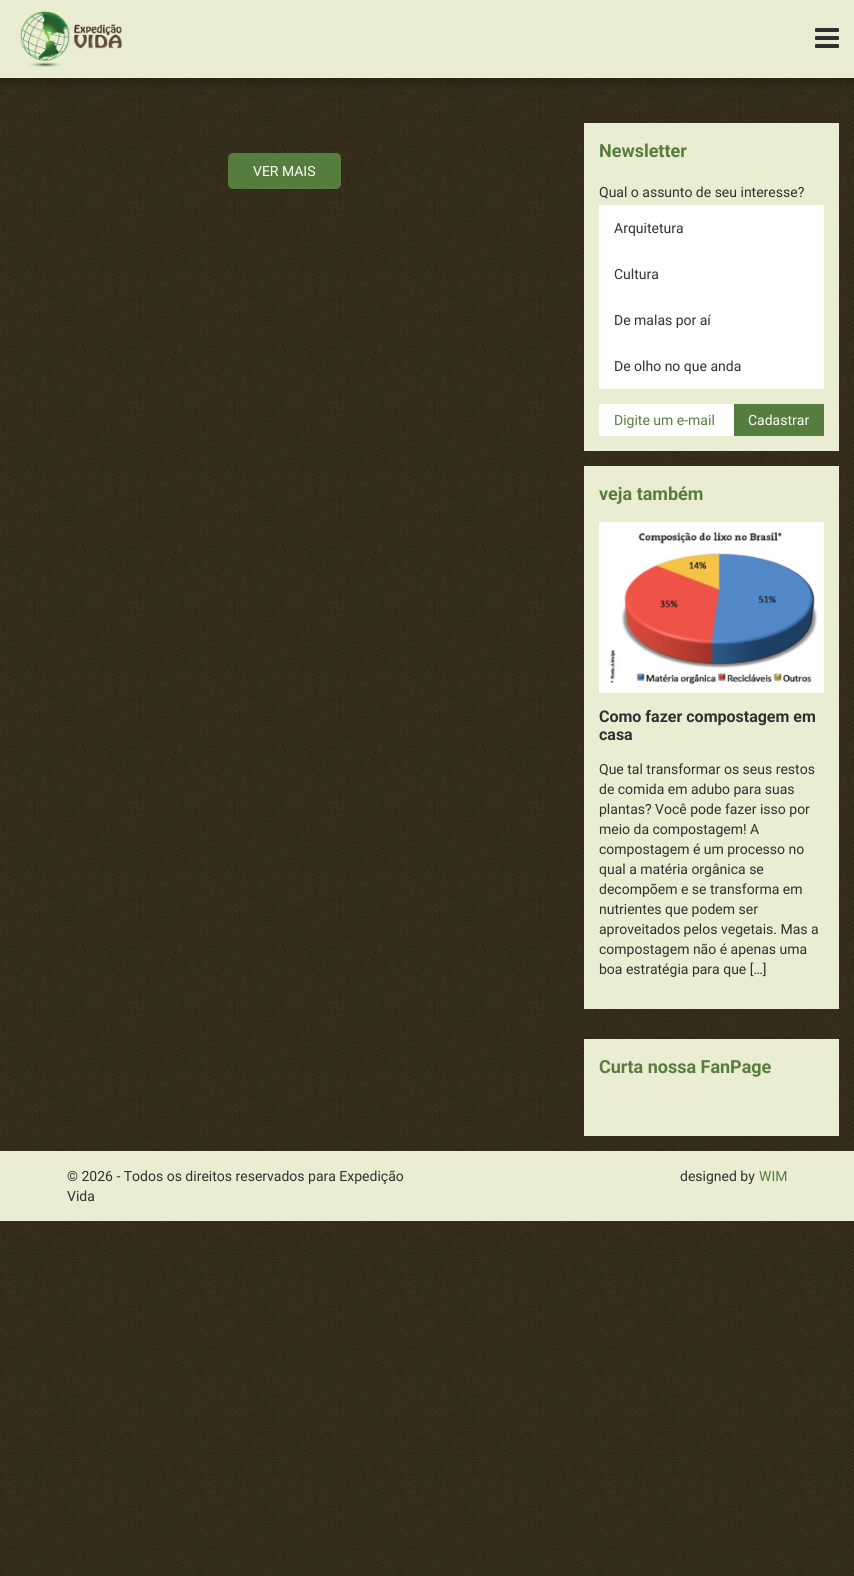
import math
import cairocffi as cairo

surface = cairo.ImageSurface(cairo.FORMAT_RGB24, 854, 1576)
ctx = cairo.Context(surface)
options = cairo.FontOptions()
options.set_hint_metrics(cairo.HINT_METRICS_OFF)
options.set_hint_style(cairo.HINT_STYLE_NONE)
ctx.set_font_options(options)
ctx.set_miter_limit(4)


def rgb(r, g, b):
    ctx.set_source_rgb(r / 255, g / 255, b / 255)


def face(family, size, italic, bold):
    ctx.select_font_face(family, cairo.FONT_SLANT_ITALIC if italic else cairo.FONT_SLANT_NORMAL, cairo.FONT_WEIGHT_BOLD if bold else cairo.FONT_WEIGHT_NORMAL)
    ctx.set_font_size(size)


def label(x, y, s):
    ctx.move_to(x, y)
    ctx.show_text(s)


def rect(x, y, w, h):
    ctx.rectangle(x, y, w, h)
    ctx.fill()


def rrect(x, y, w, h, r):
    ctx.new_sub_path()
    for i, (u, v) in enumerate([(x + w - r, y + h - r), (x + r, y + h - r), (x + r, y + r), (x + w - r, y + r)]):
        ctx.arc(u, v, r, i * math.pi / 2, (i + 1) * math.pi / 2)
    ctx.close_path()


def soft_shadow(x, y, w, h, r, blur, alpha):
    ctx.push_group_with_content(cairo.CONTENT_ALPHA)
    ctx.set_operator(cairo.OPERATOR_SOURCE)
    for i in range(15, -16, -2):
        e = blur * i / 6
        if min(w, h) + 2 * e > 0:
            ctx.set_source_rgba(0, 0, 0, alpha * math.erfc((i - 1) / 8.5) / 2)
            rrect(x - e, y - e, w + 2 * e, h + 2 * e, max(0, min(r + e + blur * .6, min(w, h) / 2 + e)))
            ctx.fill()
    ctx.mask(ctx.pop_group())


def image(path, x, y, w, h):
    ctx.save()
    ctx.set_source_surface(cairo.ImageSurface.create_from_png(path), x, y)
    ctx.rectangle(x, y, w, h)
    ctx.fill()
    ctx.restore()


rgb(255, 255, 255)
ctx.paint()
image('image0.png', 0, 78, 854, 1498)
rgb(234, 237, 210)
rect(0, 0, 854, 78)
image('image3.png', 0, 93, 854, 1058)
ctx.save()
ctx.rectangle(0, 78, 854, 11)
ctx.clip()
rgb(0, 0, 0)
soft_shadow(-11, 75, 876, 10, 0, 3.5, 0.2)
ctx.restore()
image('image1.png', 20, 11, 102, 56)
image('image2.png', 815, 28, 24, 20)
rgb(85, 125, 62)
rrect(228, 153, 113, 36, 5)
ctx.fill()
face('Roboto', 14, 0, 0)
rgb(255, 255, 255)
label(253, 176, 'VER MAIS')
rgb(234, 237, 210)
rect(584, 123, 255, 328)
face('Roboto', 18, 0, 1)
rgb(85, 125, 62)
label(599, 157, 'Newsletter')
face('Roboto', 14, 0, 0)
rgb(48, 48, 48)
label(599, 197, 'Qual o assunto de seu interesse?')
rgb(255, 255, 255)
rect(599, 205, 225, 184)
rgb(48, 48, 48)
label(614, 233, 'Arquitetura')
label(614, 279, 'Cultura')
label(614, 325, 'De malas por aí')
label(614, 371, 'De olho no que anda')
rgb(255, 255, 255)
rect(599, 404, 135, 32)
rgb(85, 125, 62)
label(614, 425, 'Digite um e-mail')
rect(734, 404, 90, 32)
rgb(255, 255, 255)
label(748, 425, 'Cadastrar')
rgb(234, 237, 210)
rect(584, 466, 255, 543)
face('Roboto', 18, 0, 1)
rgb(85, 125, 62)
label(599, 500, 'veja também')
image('image4.png', 599, 522, 225, 171)
face('Roboto', 16, 0, 1)
rgb(48, 48, 48)
label(599, 722, 'Como fazer compostagem em')
label(599, 740, 'casa')
face('Roboto', 14, 0, 0)
label(599, 774, 'Que tal transformar os seus restos')
label(599, 794, 'de comida em adubo para suas')
label(599, 814, 'plantas? Você pode fazer isso por')
label(599, 834, 'meio da compostagem! A')
label(599, 854, 'compostagem é um processo no')
label(599, 874, 'qual a matéria orgânica se')
label(599, 894, 'decompõem e se transforma em')
label(599, 914, 'nutrientes que podem ser')
label(599, 934, 'aproveitados pelos vegetais. Mas a')
label(599, 954, 'compostagem não é apenas uma')
label(599, 974, 'boa estratégia para que […]')
rgb(234, 237, 210)
rect(584, 1039, 255, 97)
face('Roboto', 18, 0, 1)
rgb(85, 125, 62)
label(599, 1073, 'Curta nossa FanPage')
rgb(234, 237, 210)
rect(0, 1151, 854, 70)
face('Roboto', 14, 0, 0)
rgb(48, 48, 48)
label(67, 1181, '© 2026 - Todos os direitos reservados para Expedição')
label(67, 1201, 'Vida')
label(680, 1181, 'designed by')
rgb(85, 125, 62)
label(759, 1181, 'WIM')
surface.write_to_png('render.png')
